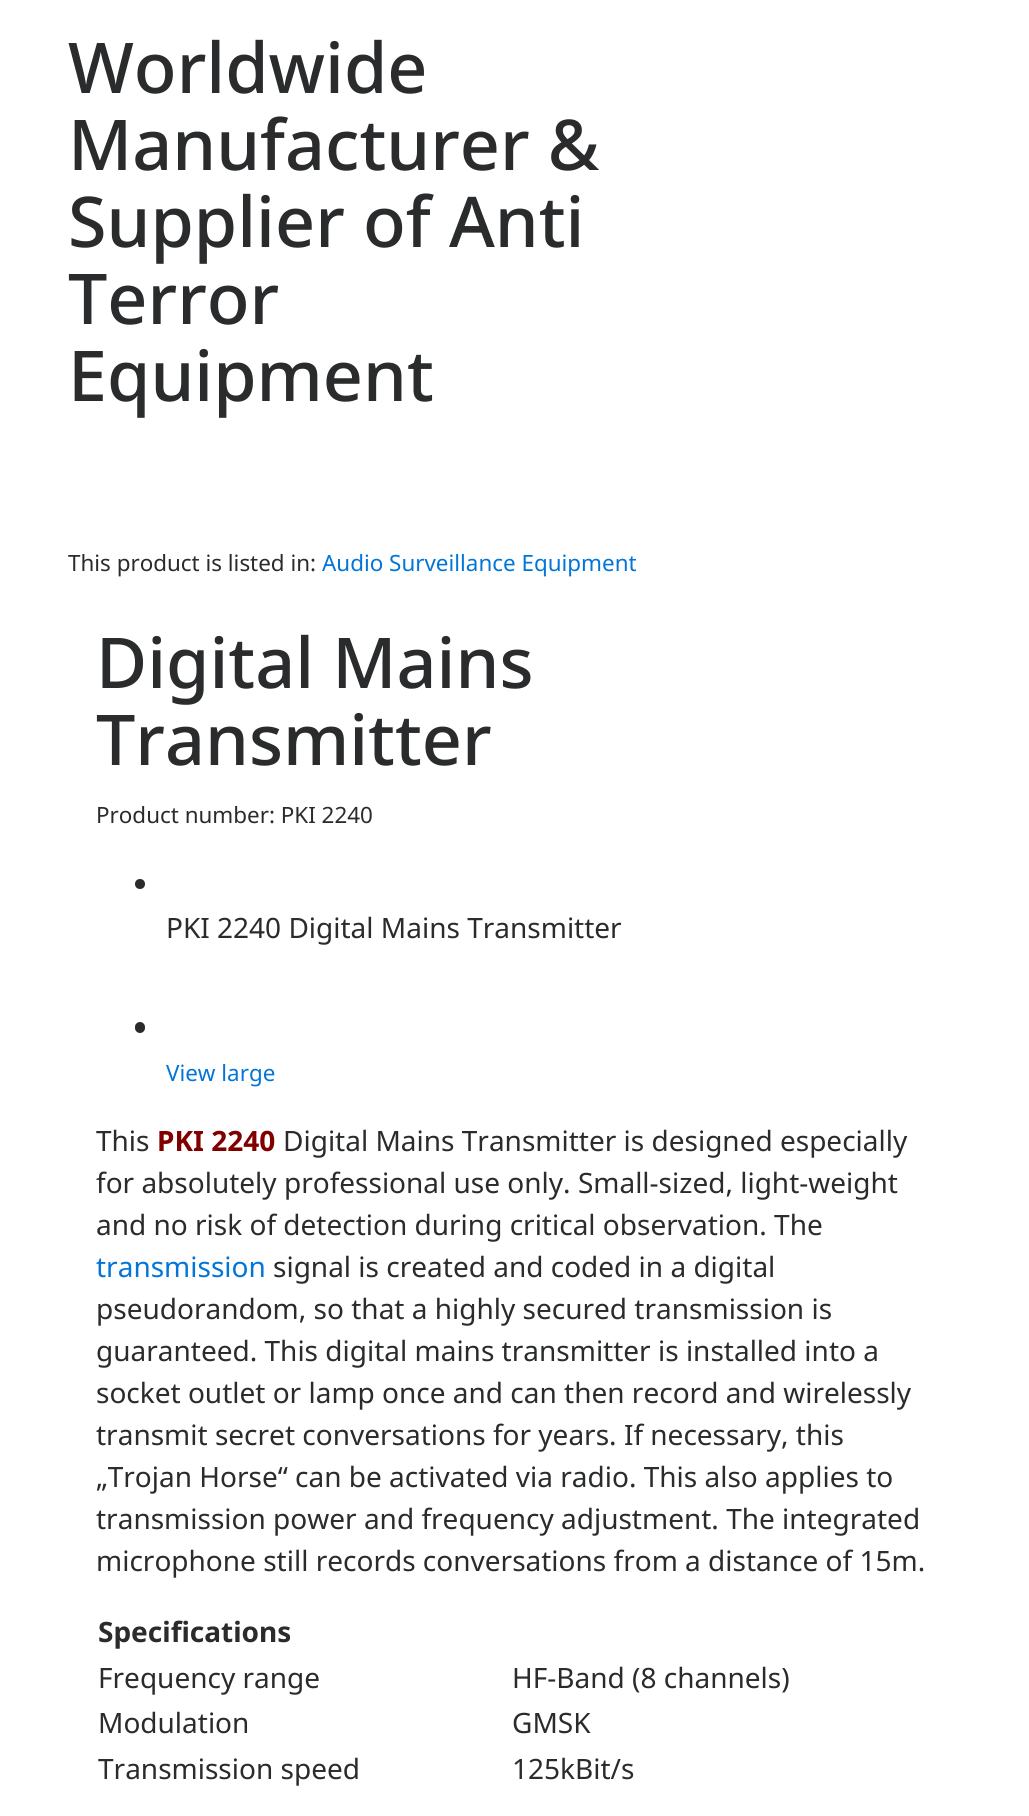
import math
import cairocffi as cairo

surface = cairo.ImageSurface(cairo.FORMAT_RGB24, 1029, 1816)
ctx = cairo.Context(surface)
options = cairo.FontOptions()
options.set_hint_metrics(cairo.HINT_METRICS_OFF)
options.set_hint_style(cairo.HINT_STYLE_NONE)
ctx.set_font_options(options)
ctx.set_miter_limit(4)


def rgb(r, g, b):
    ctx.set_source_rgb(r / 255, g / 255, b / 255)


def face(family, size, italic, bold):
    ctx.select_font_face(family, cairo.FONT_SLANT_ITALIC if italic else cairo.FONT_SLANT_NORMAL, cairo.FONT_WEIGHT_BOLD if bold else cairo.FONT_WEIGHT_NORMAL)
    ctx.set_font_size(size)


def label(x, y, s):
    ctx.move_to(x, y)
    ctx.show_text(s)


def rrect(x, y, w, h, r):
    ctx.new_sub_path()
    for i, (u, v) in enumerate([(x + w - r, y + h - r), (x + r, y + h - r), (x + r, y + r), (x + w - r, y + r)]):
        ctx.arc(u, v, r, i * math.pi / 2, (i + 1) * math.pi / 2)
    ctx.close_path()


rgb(255, 255, 255)
ctx.paint()
face('Noto Sans Medium', 70, 0, 0)
rgb(41, 43, 44)
label(68, 93, 'Worldwide')
label(68, 170, 'Manufacturer &')
label(68, 247, 'Supplier of Anti')
label(68, 324, 'Terror')
label(68, 401, 'Equipment')
face('Noto Sans', 22.4, 0, 0)
label(68, 571, 'This product is listed in:')
rgb(2, 117, 216)
label(322, 571, 'Audio Surveillance Equipment')
face('Noto Sans Medium', 70, 0, 0)
rgb(41, 43, 44)
label(96, 688, 'Digital Mains')
label(96, 765, 'Transmitter')
face('Noto Sans', 22.4, 0, 0)
label(96, 823, 'Product number: PKI 2240')
ctx.new_path()
ctx.arc(140, 884, 5, 0, 2 * math.pi)
ctx.fill()
face('Noto Sans', 28, 0, 0)
label(166, 938, 'PKI 2240 Digital Mains Transmitter')
rrect(135, 1022, 10, 11, 5)
ctx.fill()
face('Noto Sans', 22.4, 0, 0)
rgb(2, 117, 216)
label(166, 1081, 'View large')
face('Noto Sans', 28, 0, 0)
rgb(41, 43, 44)
label(96, 1151, 'This')
face('Noto Sans', 28, 0, 1)
rgb(128, 0, 0)
label(157, 1151, 'PKI 2240')
face('Noto Sans', 28, 0, 0)
rgb(41, 43, 44)
label(283, 1151, 'Digital Mains Transmitter is designed especially')
label(96, 1193, 'for absolutely professional use only. Small-sized, light-weight')
label(96, 1235, 'and no risk of detection during critical observation. The')
rgb(2, 117, 216)
label(96, 1277, 'transmission')
rgb(41, 43, 44)
label(273, 1277, 'signal is created and coded in a digital')
label(96, 1319, 'pseudorandom, so that a highly secured transmission is')
label(96, 1361, 'guaranteed. This digital mains transmitter is installed into a')
label(96, 1403, 'socket outlet or lamp once and can then record and wirelessly')
label(96, 1445, 'transmit secret conversations for years. If necessary, this')
label(96, 1487, '„Trojan Horse“ can be activated via radio. This also applies to')
label(96, 1529, 'transmission power and frequency adjustment. The integrated')
label(96, 1571, 'microphone still records conversations from a distance of 15m.')
face('Noto Sans', 28, 0, 1)
label(98, 1642, 'Specifications')
face('Noto Sans', 28, 0, 0)
label(98, 1688, 'Frequency range')
label(512, 1688, 'HF-Band (8 channels)')
label(98, 1733, 'Modulation')
label(512, 1733, 'GMSK')
label(98, 1779, 'Transmission speed')
label(512, 1779, '125kBit/s')
surface.write_to_png('render.png')
